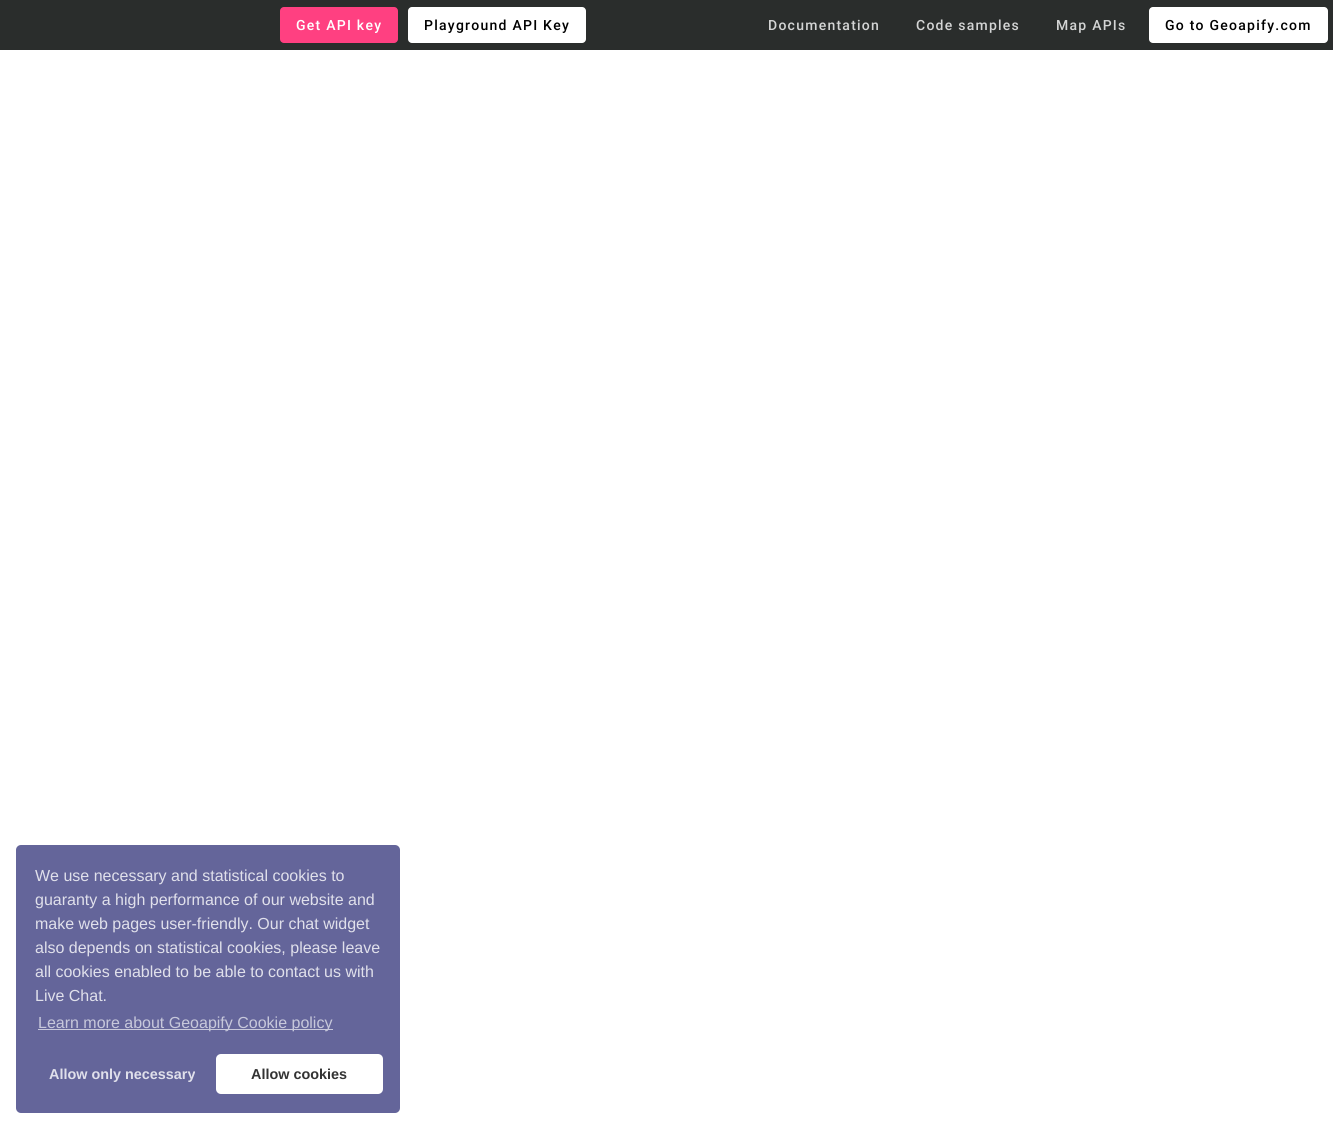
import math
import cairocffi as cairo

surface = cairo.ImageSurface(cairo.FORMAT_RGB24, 1333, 1129)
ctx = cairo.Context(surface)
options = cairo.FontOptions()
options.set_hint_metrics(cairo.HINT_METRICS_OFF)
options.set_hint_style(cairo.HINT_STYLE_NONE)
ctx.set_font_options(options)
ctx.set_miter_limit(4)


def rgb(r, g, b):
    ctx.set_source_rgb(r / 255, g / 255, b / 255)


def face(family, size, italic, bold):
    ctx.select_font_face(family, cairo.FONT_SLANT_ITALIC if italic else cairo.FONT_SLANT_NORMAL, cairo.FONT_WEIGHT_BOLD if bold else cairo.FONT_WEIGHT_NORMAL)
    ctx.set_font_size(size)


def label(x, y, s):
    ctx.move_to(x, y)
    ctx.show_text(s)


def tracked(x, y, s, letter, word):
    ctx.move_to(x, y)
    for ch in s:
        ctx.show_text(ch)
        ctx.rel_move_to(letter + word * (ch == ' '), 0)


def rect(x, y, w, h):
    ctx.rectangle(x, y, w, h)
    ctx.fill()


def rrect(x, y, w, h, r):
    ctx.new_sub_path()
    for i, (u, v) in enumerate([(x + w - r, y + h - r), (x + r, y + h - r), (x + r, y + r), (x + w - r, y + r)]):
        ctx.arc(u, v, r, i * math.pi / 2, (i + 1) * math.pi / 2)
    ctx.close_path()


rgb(255, 255, 255)
ctx.paint()
rgb(42, 45, 44)
rect(0, 0, 1333, 50)
rgb(255, 64, 129)
rrect(280, 7, 118, 36, 4)
ctx.fill()
face('Roboto Medium', 14, 0, 0)
rgb(255, 255, 255)
tracked(296, 30, 'Get API key', 1.25, 0)
rrect(408, 7, 178, 36, 4)
ctx.fill()
rgb(0, 0, 0)
tracked(424, 30, 'Playground API Key', 1.25, 0)
rgb(212, 213, 213)
tracked(768, 30, 'Documentation', 1.25, 0)
tracked(916, 30, 'Code samples', 1.25, 0)
tracked(1056, 30, 'Map APIs', 1.25, 0)
rgb(255, 255, 255)
rrect(1149, 7, 179, 36, 4)
ctx.fill()
rgb(0, 0, 0)
tracked(1165, 30, 'Go to Geoapify.com', 1.25, 0)
rgb(100, 101, 154)
rrect(16, 845, 384, 268, 5)
ctx.fill()
face('Liberation Sans', 16, 0, 0)
rgb(224, 224, 235)
label(35, 881, 'We use necessary and statistical cookies to')
label(35, 905, 'guaranty a high performance of our website and')
label(35, 929, 'make web pages user-friendly. Our chat widget')
label(35, 953, 'also depends on statistical cookies, please leave')
label(35, 977, 'all cookies enabled to be able to contact us with')
label(35, 1001, 'Live Chat.')
rgb(199, 199, 219)
rect(38, 1029, 295, 1)
rgb(199, 200, 219)
label(38, 1028, 'Learn more about Geoapify Cookie policy')
face('Liberation Sans', 14.4, 0, 1)
rgb(224, 224, 235)
label(49, 1079, 'Allow only necessary')
rgb(255, 255, 255)
rrect(216, 1054, 167, 40, 5)
ctx.fill()
rgb(51, 51, 51)
label(251, 1079, 'Allow cookies')
surface.write_to_png('render.png')
